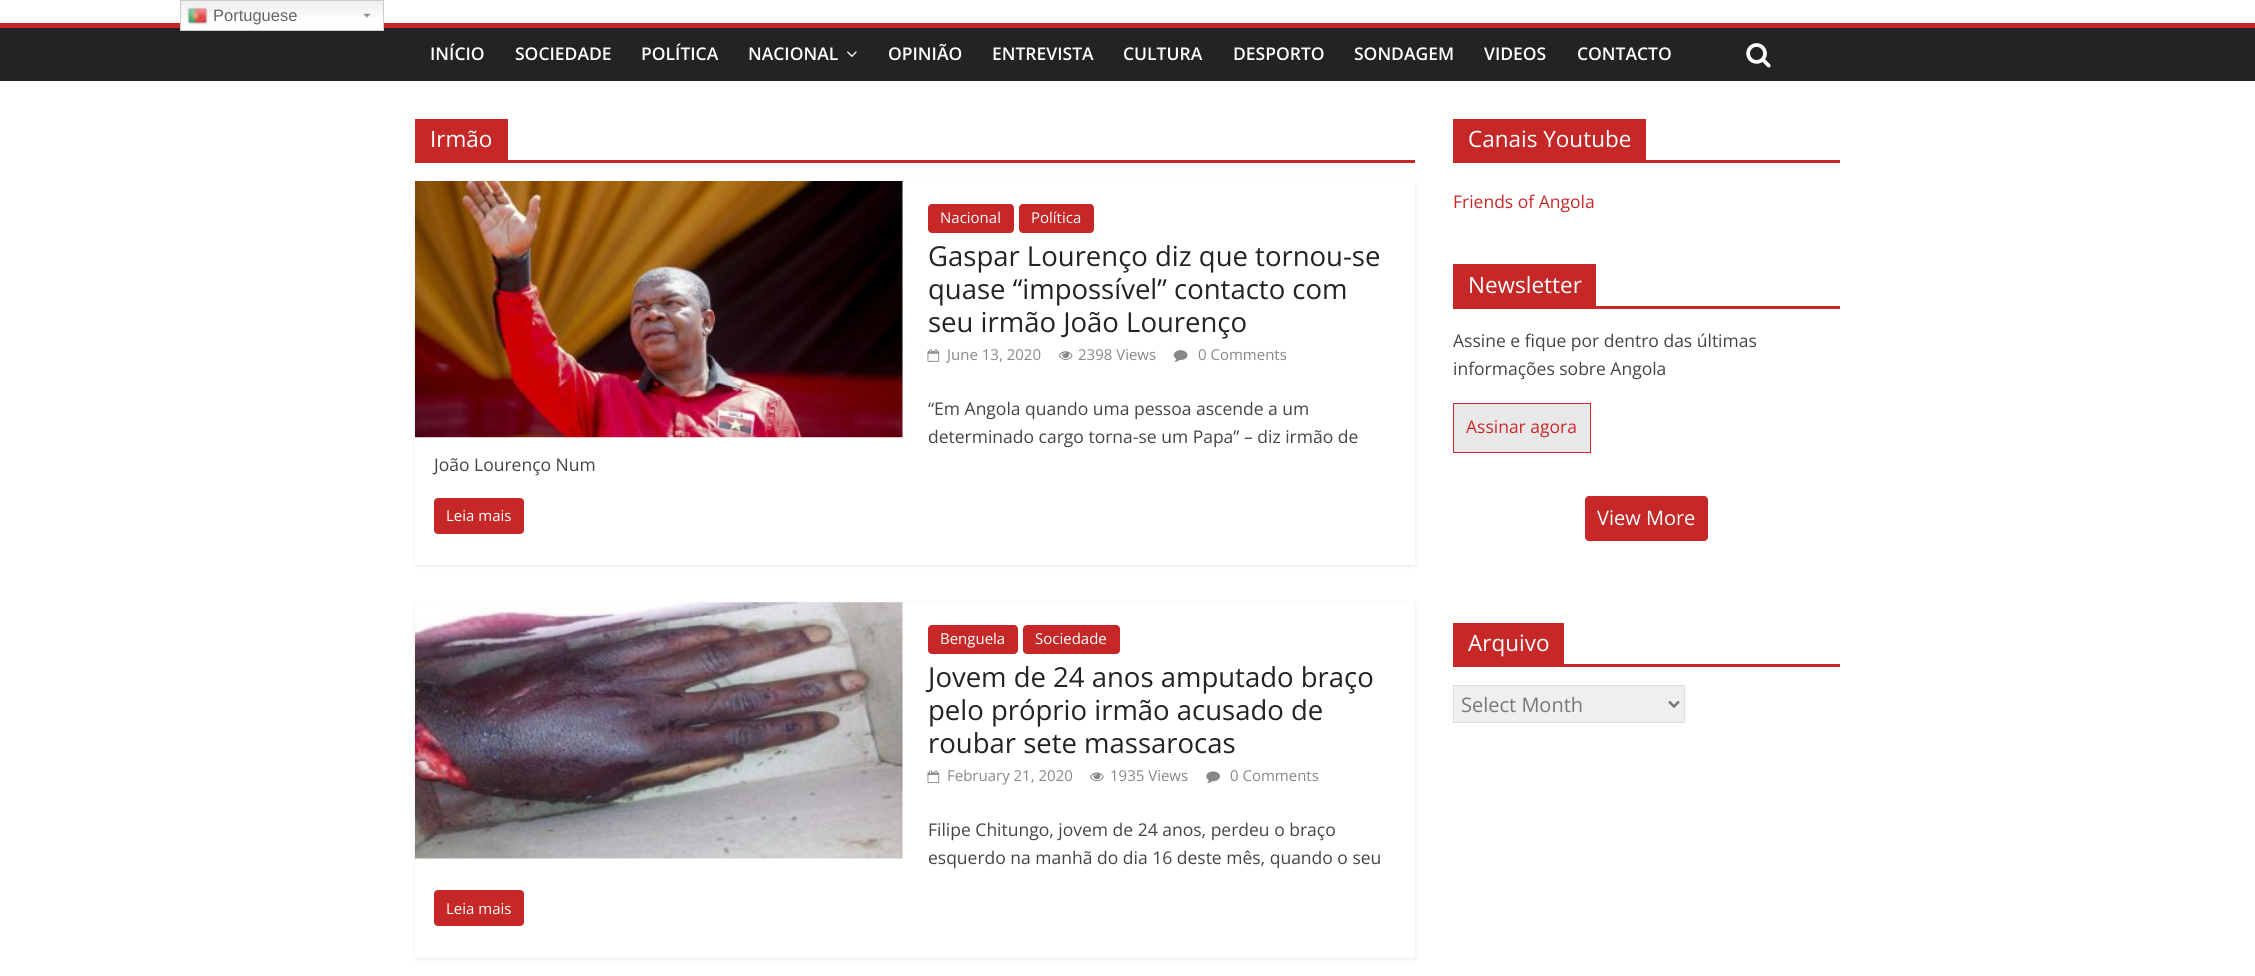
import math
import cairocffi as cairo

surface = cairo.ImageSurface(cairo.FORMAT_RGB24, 2255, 976)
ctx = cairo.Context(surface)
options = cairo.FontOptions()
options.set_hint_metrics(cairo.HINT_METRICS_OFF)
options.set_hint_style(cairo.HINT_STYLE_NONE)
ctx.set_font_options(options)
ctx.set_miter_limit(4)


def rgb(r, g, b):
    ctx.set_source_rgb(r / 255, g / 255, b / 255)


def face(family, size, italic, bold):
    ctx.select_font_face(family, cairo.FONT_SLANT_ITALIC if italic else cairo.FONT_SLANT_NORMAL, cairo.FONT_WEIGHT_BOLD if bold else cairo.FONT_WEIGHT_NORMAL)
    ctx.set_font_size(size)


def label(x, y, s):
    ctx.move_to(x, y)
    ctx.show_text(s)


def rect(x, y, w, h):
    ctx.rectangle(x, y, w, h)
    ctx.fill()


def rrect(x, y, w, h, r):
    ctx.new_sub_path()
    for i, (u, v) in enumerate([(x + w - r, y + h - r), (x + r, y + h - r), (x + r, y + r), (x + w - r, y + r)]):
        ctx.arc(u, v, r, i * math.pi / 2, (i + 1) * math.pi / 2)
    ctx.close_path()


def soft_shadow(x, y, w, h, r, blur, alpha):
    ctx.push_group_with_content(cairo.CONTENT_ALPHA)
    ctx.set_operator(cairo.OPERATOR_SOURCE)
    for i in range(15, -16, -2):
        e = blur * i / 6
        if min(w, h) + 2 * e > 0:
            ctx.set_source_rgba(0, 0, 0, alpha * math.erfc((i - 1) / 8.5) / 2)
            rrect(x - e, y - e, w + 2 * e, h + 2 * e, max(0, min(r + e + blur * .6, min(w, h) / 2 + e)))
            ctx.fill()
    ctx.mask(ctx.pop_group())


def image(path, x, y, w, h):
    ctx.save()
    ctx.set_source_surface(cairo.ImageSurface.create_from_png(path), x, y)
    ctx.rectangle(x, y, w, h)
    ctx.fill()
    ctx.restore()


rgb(255, 255, 255)
ctx.paint()
rgb(35, 35, 35)
rect(0, 28, 2255, 53)
rgb(198, 39, 39)
rect(0, 23, 2255, 5)
rgb(255, 255, 255)
rect(181, 23, 202, 7)
image('image0.png', 181, 1, 202, 16)
image('image1.png', 363, 13, 7, 5)
ctx.rectangle(180.5, 0.5, 203, 30)
rgb(204, 204, 204)
ctx.set_line_width(1)
ctx.stroke()
image('image2.png', 187, 7, 21, 18)
face('Liberation Sans', 16.5, 0, 0)
rgb(102, 102, 102)
label(213, 21, 'Portuguese')
face('Open Sans SemiBold', 17.5, 0, 0)
rgb(255, 255, 255)
label(430, 60, 'INÍCIO')
label(515, 60, 'SOCIEDADE')
label(641, 60, 'POLÍTICA')
label(748, 60, 'NACIONAL')
image('image3.png', 847, 51, 10, 6)
label(888, 60, 'OPINIÃO')
label(992, 60, 'ENTREVISTA')
label(1123, 60, 'CULTURA')
label(1233, 60, 'DESPORTO')
label(1354, 60, 'SONDAGEM')
label(1484, 60, 'VIDEOS')
label(1577, 60, 'CONTACTO')
image('image4.png', 1746, 43, 25, 25)
rgb(198, 39, 39)
rect(415, 160, 1000, 3)
rect(415, 119, 93, 41)
face('Open Sans', 22.5, 0, 0)
rgb(255, 255, 255)
label(430, 147, 'Irmão')
ctx.save()
ctx.set_fill_rule(cairo.FILL_RULE_EVEN_ODD)
ctx.new_path()
ctx.move_to(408, 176)
ctx.line_to(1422, 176)
ctx.line_to(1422, 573)
ctx.line_to(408, 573)
ctx.close_path()
ctx.move_to(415, 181)
ctx.line_to(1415, 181)
ctx.line_to(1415, 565)
ctx.line_to(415, 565)
ctx.close_path()
ctx.clip()
rgb(0, 0, 0)
soft_shadow(415, 183, 1000, 383, 0, 2, 0.1)
ctx.restore()
image('image5.png', 415, 181, 488, 257)
rgb(198, 39, 39)
rrect(928, 204, 86, 29, 4)
ctx.fill()
face('Open Sans', 15, 0, 0)
rgb(255, 255, 255)
label(940, 223, 'Nacional')
rgb(198, 39, 39)
rrect(1019, 204, 75, 29, 4)
ctx.fill()
rgb(255, 255, 255)
label(1031, 223, 'Política')
face('Open Sans', 27.5, 0, 0)
rgb(35, 35, 35)
label(928, 266, 'Gaspar Lourenço diz que tornou-se')
label(928, 299, 'quase “impossível” contacto com')
label(928, 332, 'seu irmão João Lourenço')
image('image6.png', 927, 349, 13, 13)
face('Open Sans', 15, 0, 0)
rgb(136, 136, 136)
label(947, 360, 'June 13, 2020')
image('image7.png', 1058, 351, 15, 9)
label(1078, 360, '2398 Views')
image('image8.png', 1173, 350, 15, 12)
label(1198, 360, '0 Comments')
face('Open Sans', 17.5, 0, 0)
rgb(68, 68, 68)
label(928, 415, '“Em Angola quando uma pessoa ascende a um')
label(928, 443, 'determinado cargo torna-se um Papa” – diz irmão de')
label(434, 471, 'João Lourenço Num')
rgb(198, 39, 39)
rrect(434, 498, 90, 36, 4)
ctx.fill()
face('Open Sans', 15, 0, 0)
rgb(255, 255, 255)
label(446, 521, 'Leia mais')
ctx.save()
ctx.set_fill_rule(cairo.FILL_RULE_EVEN_ODD)
ctx.new_path()
ctx.move_to(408, 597)
ctx.line_to(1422, 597)
ctx.line_to(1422, 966)
ctx.line_to(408, 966)
ctx.close_path()
ctx.move_to(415, 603)
ctx.line_to(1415, 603)
ctx.line_to(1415, 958)
ctx.line_to(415, 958)
ctx.close_path()
ctx.clip()
rgb(0, 0, 0)
soft_shadow(415, 604, 1000, 355, 0, 2, 0.1)
ctx.restore()
image('image9.png', 415, 602, 488, 257)
rgb(198, 39, 39)
rrect(928, 625, 90, 29, 4)
ctx.fill()
rgb(255, 255, 255)
label(940, 644, 'Benguela')
rgb(198, 39, 39)
rrect(1023, 625, 97, 29, 4)
ctx.fill()
rgb(255, 255, 255)
label(1035, 644, 'Sociedade')
face('Open Sans', 27.5, 0, 0)
rgb(35, 35, 35)
label(928, 687, 'Jovem de 24 anos amputado braço')
label(928, 720, 'pelo próprio irmão acusado de')
label(928, 753, 'roubar sete massarocas')
image('image10.png', 927, 770, 13, 14)
face('Open Sans', 15, 0, 0)
rgb(136, 136, 136)
label(947, 781, 'February 21, 2020')
image('image11.png', 1090, 772, 14, 10)
label(1110, 781, '1935 Views')
image('image12.png', 1206, 771, 14, 13)
label(1230, 781, '0 Comments')
face('Open Sans', 17.5, 0, 0)
rgb(68, 68, 68)
label(928, 836, 'Filipe Chitungo, jovem de 24 anos, perdeu o braço')
label(928, 864, 'esquerdo na manhã do dia 16 deste mês, quando o seu')
rgb(198, 39, 39)
rrect(434, 890, 90, 36, 4)
ctx.fill()
face('Open Sans', 15, 0, 0)
rgb(255, 255, 255)
label(446, 914, 'Leia mais')
rgb(198, 39, 39)
rect(1453, 160, 387, 3)
rect(1453, 119, 193, 41)
face('Open Sans', 22.5, 0, 0)
rgb(255, 255, 255)
label(1468, 147, 'Canais Youtube')
face('Open Sans', 17.5, 0, 0)
rgb(198, 39, 39)
label(1453, 208, 'Friends of Angola')
rect(1453, 306, 387, 3)
rect(1453, 264, 143, 42)
face('Open Sans', 22.5, 0, 0)
rgb(255, 255, 255)
label(1468, 293, 'Newsletter')
face('Open Sans', 17.5, 0, 0)
rgb(68, 68, 68)
label(1453, 347, 'Assine e fique por dentro das últimas')
label(1453, 375, 'informações sobre Angola')
rgb(232, 232, 232)
ctx.rectangle(1453.5, 403.5, 137, 49)
ctx.fill_preserve()
rgb(205, 40, 42)
ctx.stroke()
label(1466, 433, 'Assinar agora')
rgb(198, 39, 39)
rrect(1585, 496, 123, 45, 4)
ctx.fill()
face('Open Sans', 20, 0, 0)
rgb(255, 255, 255)
label(1597, 525, 'View More')
rgb(198, 39, 39)
rect(1453, 664, 387, 3)
rect(1453, 623, 111, 41)
face('Open Sans', 22.5, 0, 0)
rgb(255, 255, 255)
label(1468, 651, 'Arquivo')
rgb(239, 239, 239)
ctx.rectangle(1453.5, 685.5, 231, 37)
ctx.fill_preserve()
rgb(221, 221, 221)
ctx.stroke()
ctx.new_path()
ctx.move_to(1669, 701.5)
ctx.line_to(1674, 706.5)
ctx.line_to(1679, 701.5)
rgb(119, 119, 119)
ctx.set_line_width(2.5)
ctx.stroke()
face('Open Sans', 20, 0, 0)
label(1461, 712, 'Select Month')
surface.write_to_png('render.png')
